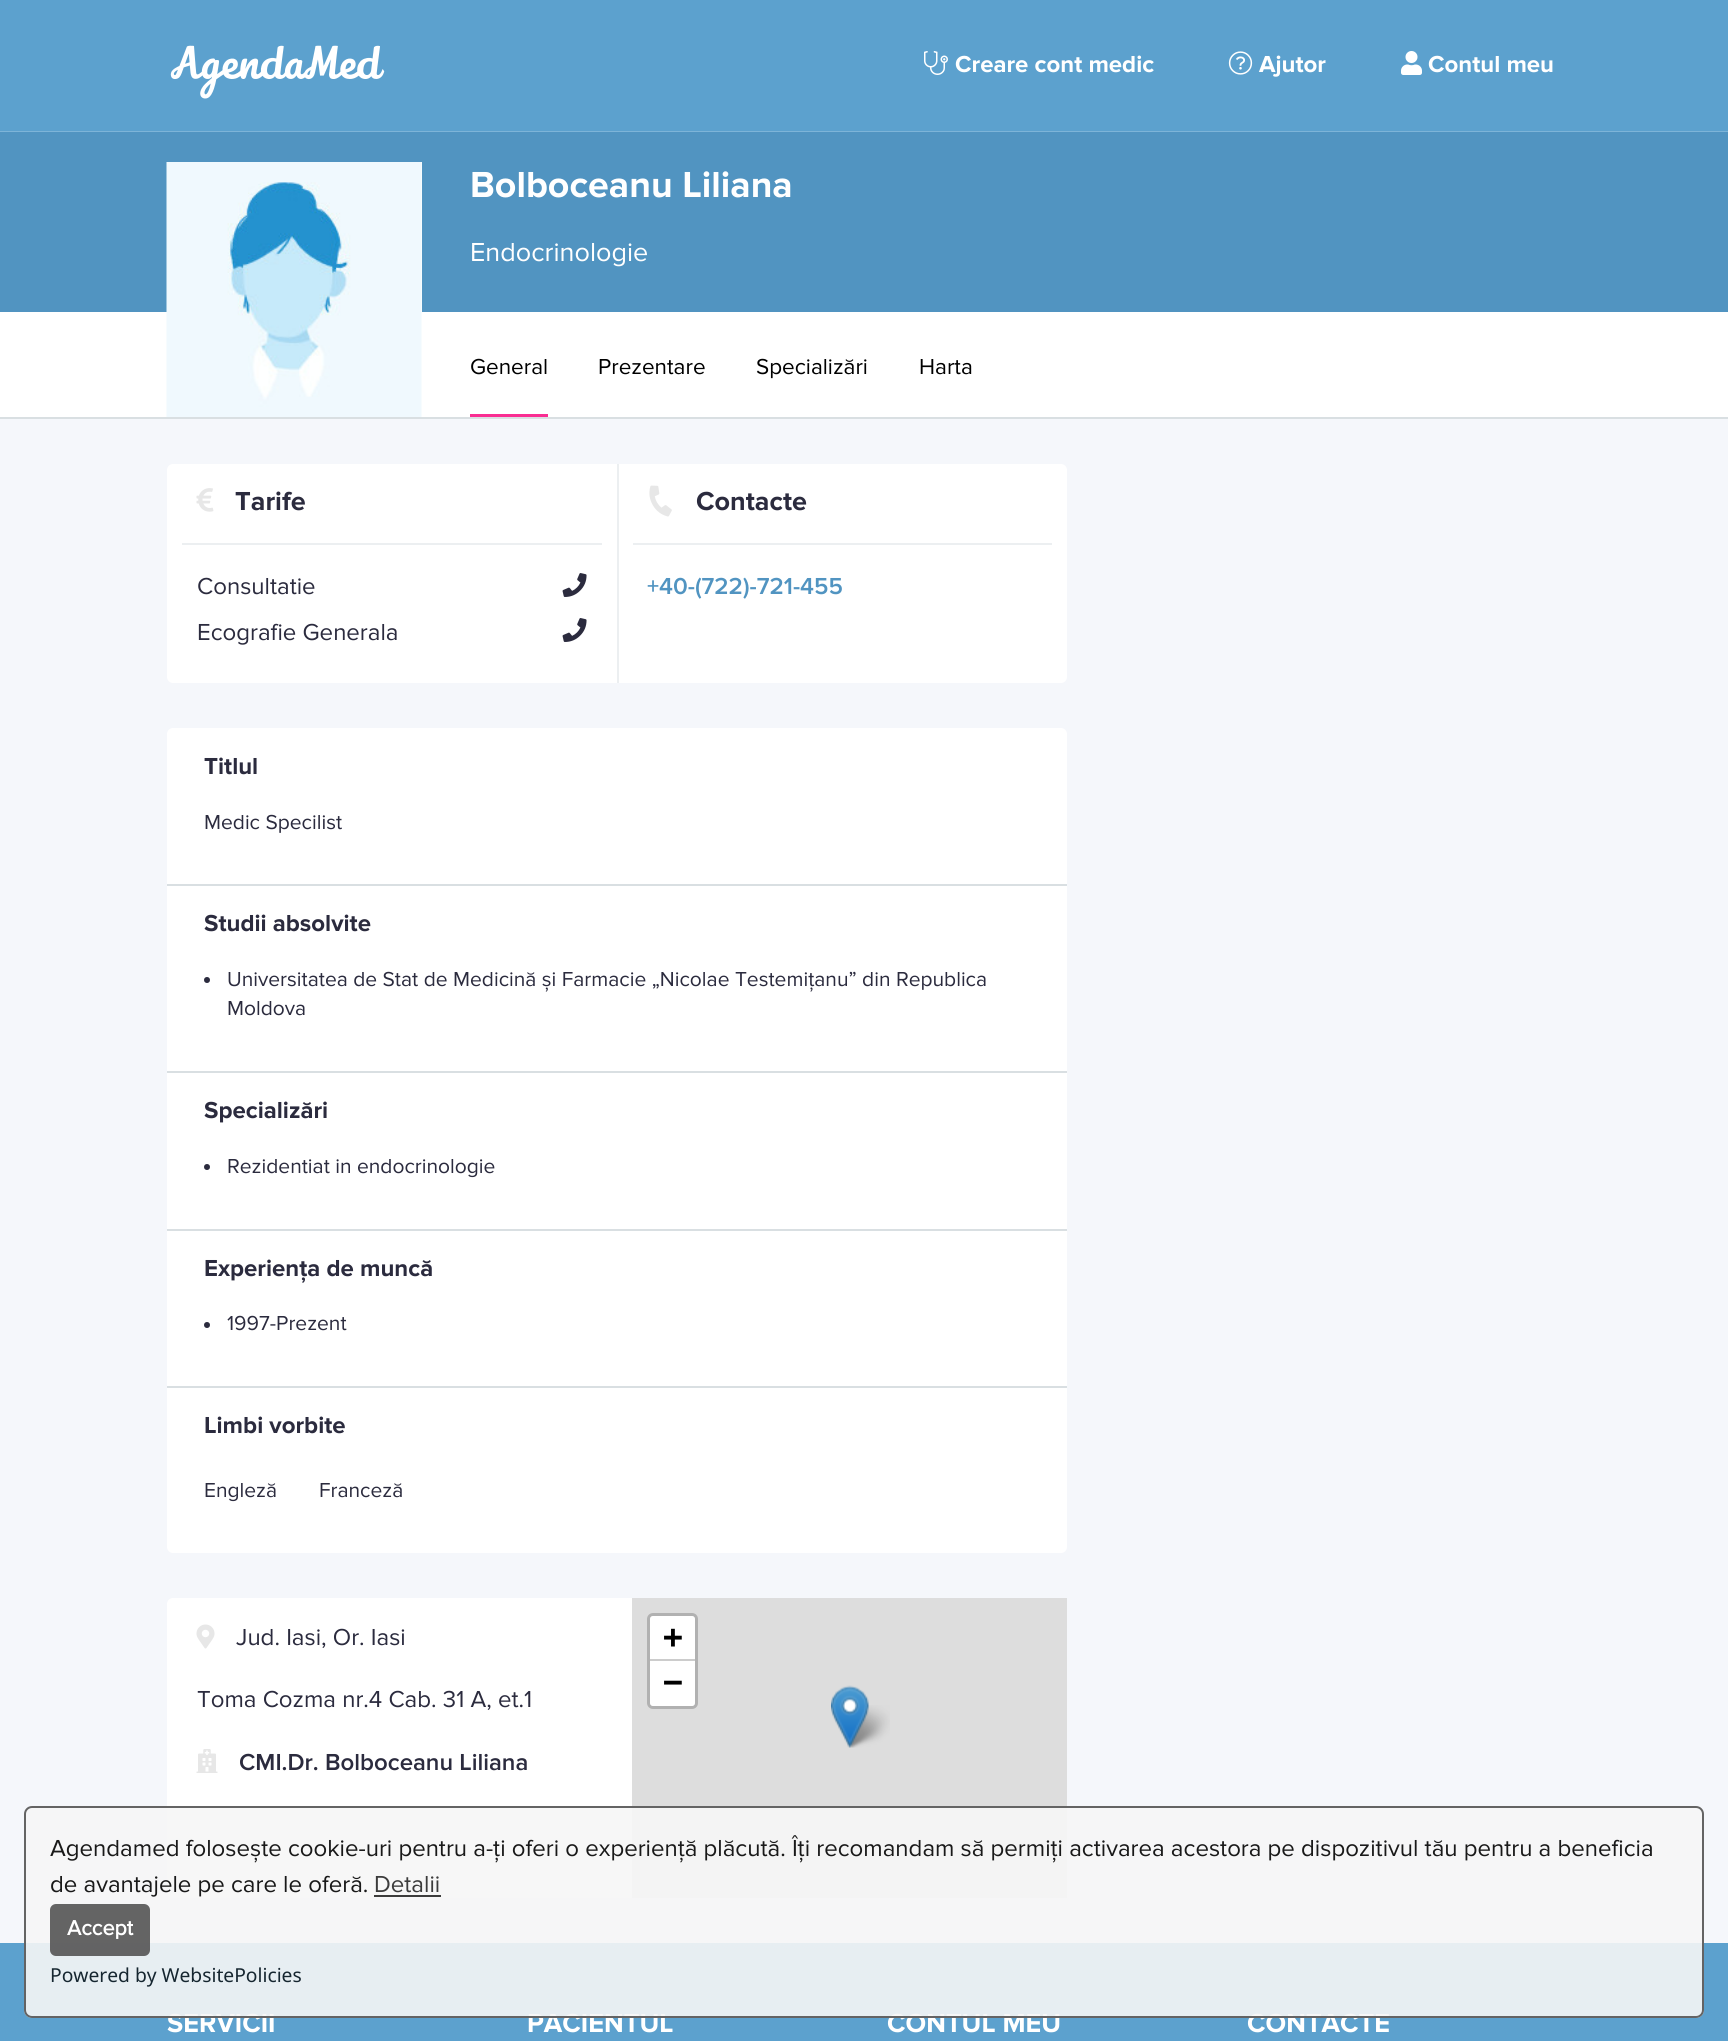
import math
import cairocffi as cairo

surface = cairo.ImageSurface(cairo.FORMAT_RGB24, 1728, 2041)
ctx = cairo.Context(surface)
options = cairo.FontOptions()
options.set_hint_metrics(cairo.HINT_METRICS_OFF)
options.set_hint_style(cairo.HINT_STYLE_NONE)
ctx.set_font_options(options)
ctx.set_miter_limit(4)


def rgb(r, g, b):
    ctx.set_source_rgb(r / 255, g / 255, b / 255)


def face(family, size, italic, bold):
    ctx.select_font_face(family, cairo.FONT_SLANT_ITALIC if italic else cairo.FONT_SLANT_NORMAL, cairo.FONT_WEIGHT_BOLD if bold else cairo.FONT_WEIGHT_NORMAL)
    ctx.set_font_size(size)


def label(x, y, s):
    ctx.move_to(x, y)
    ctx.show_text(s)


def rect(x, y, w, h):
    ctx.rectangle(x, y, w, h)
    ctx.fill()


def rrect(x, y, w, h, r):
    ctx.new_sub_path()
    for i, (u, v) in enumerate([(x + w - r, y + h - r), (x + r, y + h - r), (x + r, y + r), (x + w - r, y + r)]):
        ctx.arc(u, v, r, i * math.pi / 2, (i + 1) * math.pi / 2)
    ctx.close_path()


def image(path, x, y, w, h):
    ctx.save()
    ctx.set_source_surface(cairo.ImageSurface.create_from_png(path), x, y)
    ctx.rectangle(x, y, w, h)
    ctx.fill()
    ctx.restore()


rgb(245, 247, 251)
ctx.paint()
rgb(92, 161, 206)
rect(0, 0, 1728, 131)
rgb(125, 180, 216)
rect(0, 131, 1728, 1)
image('image0.png', 170, 45, 215, 54)
image('image1.png', 924, 51, 24, 24)
face('Proxima Nova', 24, 0, 1)
rgb(255, 255, 255)
label(955, 72, 'Creare cont medic')
image('image2.png', 1228, 51, 25, 24)
label(1259, 72, 'Ajutor')
image('image3.png', 1401, 51, 21, 24)
label(1428, 72, 'Contul meu')
rgb(81, 148, 193)
rect(0, 132, 1728, 180)
rgb(217, 223, 226)
rect(0, 417, 1728, 2)
rgb(255, 255, 255)
rect(421, 162, 1, 150)
rect(0, 312, 1728, 105)
image('image4.png', 166, 162, 256, 255)
face('Proxima Nova', 37.5, 0, 1)
label(470, 197, 'Bolboceanu Liliana')
face('Proxima Nova', 27, 0, 0)
label(470, 261, 'Endocrinologie')
rgb(249, 45, 146)
rect(470, 414, 78, 3)
face('Proxima Nova', 22.5, 0, 0)
rgb(0, 0, 0)
label(470, 374, 'General')
label(598, 374, 'Prezentare')
label(756, 374, 'Specializări')
label(919, 374, 'Harta')
rgb(255, 255, 255)
rrect(167, 464, 900, 219, 6)
ctx.fill()
rgb(236, 239, 241)
rect(617, 464, 2, 219)
image('image5.png', 196, 488, 18, 24)
face('Proxima Nova', 27, 0, 1)
rgb(43, 43, 62)
label(235, 510, 'Tarife')
rgb(236, 239, 241)
rect(182, 543, 420, 2)
face('Proxima Nova', 24, 0, 0)
rgb(43, 43, 62)
label(197, 594, 'Consultatie')
image('image6.png', 562, 573, 25, 24)
label(197, 640, 'Ecografie Generala')
image('image6.png', 562, 618, 25, 24)
image('image7.png', 649, 485, 23, 32)
face('Proxima Nova', 27, 0, 1)
label(696, 510, 'Contacte')
rgb(236, 239, 241)
rect(633, 543, 419, 2)
face('Proxima Nova SemiBold', 24, 0, 0)
rgb(81, 148, 193)
label(647, 594, '+40-(722)-721-455')
rgb(255, 255, 255)
rrect(167, 728, 900, 825, 6)
ctx.fill()
rgb(217, 223, 226)
rect(167, 884, 900, 2)
face('Proxima Nova', 24, 0, 1)
rgb(43, 43, 62)
label(204, 774, 'Titlul')
face('Proxima Nova', 21, 0, 0)
label(204, 829, 'Medic Specilist')
rgb(217, 223, 226)
rect(167, 1071, 900, 2)
face('Proxima Nova', 24, 0, 1)
rgb(43, 43, 62)
label(204, 931, 'Studii absolvite')
ctx.new_path()
ctx.arc(207, 980, 3, 0, 2 * math.pi)
ctx.fill()
face('Proxima Nova', 21, 0, 0)
label(227, 986, 'Universitatea de Stat de Medicină și Farmacie „Nicolae Testemițanu” din Republica')
label(227, 1015, 'Moldova')
rgb(217, 223, 226)
rect(167, 1229, 900, 2)
face('Proxima Nova', 24, 0, 1)
rgb(43, 43, 62)
label(204, 1118, 'Specializări')
ctx.new_path()
ctx.arc(207, 1167, 3, 0, 2 * math.pi)
ctx.fill()
face('Proxima Nova', 21, 0, 0)
label(227, 1173, 'Rezidentiat in endocrinologie')
rgb(217, 223, 226)
rect(167, 1386, 900, 2)
face('Proxima Nova', 24, 0, 1)
rgb(43, 43, 62)
label(204, 1276, 'Experiența de muncă')
ctx.new_path()
ctx.arc(207, 1325, 3, 0, 2 * math.pi)
ctx.fill()
face('Proxima Nova', 21, 0, 0)
label(227, 1330, '1997-Prezent')
face('Proxima Nova', 24, 0, 1)
label(204, 1433, 'Limbi vorbite')
face('Proxima Nova', 21, 0, 0)
label(204, 1497, 'Engleză')
label(319, 1497, 'Franceză')
rgb(255, 255, 255)
rrect(167, 1598, 900, 300, 6)
ctx.fill()
image('image8.png', 196, 1624, 19, 25)
face('Proxima Nova', 24, 0, 0)
rgb(43, 43, 62)
label(236, 1645, 'Jud. Iasi, Or. Iasi')
label(197, 1707, 'Toma Cozma nr.4 Cab. 31 A, et.1')
image('image9.png', 196, 1749, 22, 24)
face('Proxima Nova SemiBold', 24, 0, 0)
label(239, 1770, 'CMI.Dr. Bolboceanu Liliana')
rgb(221, 221, 221)
rect(632, 1598, 435, 300)
rrect(648.5, 1614.5, 48, 93, 4.5)
rgb(177, 177, 177)
ctx.set_line_width(3)
ctx.stroke()
rgb(255, 255, 255)
ctx.new_path()
ctx.move_to(653, 1616)
ctx.line_to(692, 1616)
ctx.curve_to(693.5, 1616, 695, 1617.5, 695, 1619)
ctx.line_to(695, 1661)
ctx.line_to(650, 1661)
ctx.line_to(650, 1619)
ctx.curve_to(650, 1617.5, 651.5, 1616, 653, 1616)
ctx.close_path()
ctx.fill()
rgb(204, 204, 204)
rect(650, 1659, 45, 2)
face('DejaVu Sans Mono', 33, 0, 1)
rgb(0, 0, 0)
label(663, 1648, '+')
rgb(255, 255, 255)
ctx.new_path()
ctx.move_to(650, 1661)
ctx.line_to(695, 1661)
ctx.line_to(695, 1703)
ctx.curve_to(695, 1704.5, 693.5, 1706, 692, 1706)
ctx.line_to(653, 1706)
ctx.curve_to(651.5, 1706, 650, 1704.5, 650, 1703)
ctx.close_path()
ctx.fill()
rgb(0, 0, 0)
label(663, 1693, '−')
image('image11.png', 844, 1705, 46, 43)
image('image10.png', 831, 1685, 38, 63)
rgb(92, 161, 206)
rect(0, 1943, 1728, 98)
face('Proxima Nova', 27, 0, 1)
rgb(255, 255, 255)
label(167, 2032, 'SERVICII')
label(527, 2032, 'PACIENTUL')
label(887, 2032, 'CONTUL MEU')
label(1247, 2032, 'CONTACTE')
ctx.set_source_rgba(0.965, 0.965, 0.965, 0.9)
rrect(24, 1806, 1680, 212, 8)
ctx.fill()
rrect(25, 1807, 1678, 210, 7)
ctx.set_source_rgba(0.333, 0.333, 0.333, 0.9)
ctx.set_line_width(2)
ctx.stroke()
face('Proxima Nova', 24, 0, 0)
rgb(25, 25, 25)
label(50, 1856, 'Agendamed folosește cookie-uri pentru a-ți oferi o experiență plăcută. Îți recomandam să permiți activarea acestora pe dispozitivul tău pentru a beneficia')
label(50, 1892, 'de avantajele pe care le oferă.')
rgb(60, 60, 60)
label(374, 1892, 'Detalii')
rect(374, 1895, 67, 2)
ctx.set_source_rgba(0.333, 0.333, 0.333, 0.9)
rrect(50, 1904, 100, 52, 6)
ctx.fill()
face('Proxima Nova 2', 21.5, 0, 1)
rgb(255, 255, 255)
label(67, 1935, 'Accept')
face('Noto Sans', 19.25, 0, 0)
rgb(22, 38, 48)
label(50, 1982, 'Powered by WebsitePolicies')
surface.write_to_png('render.png')
